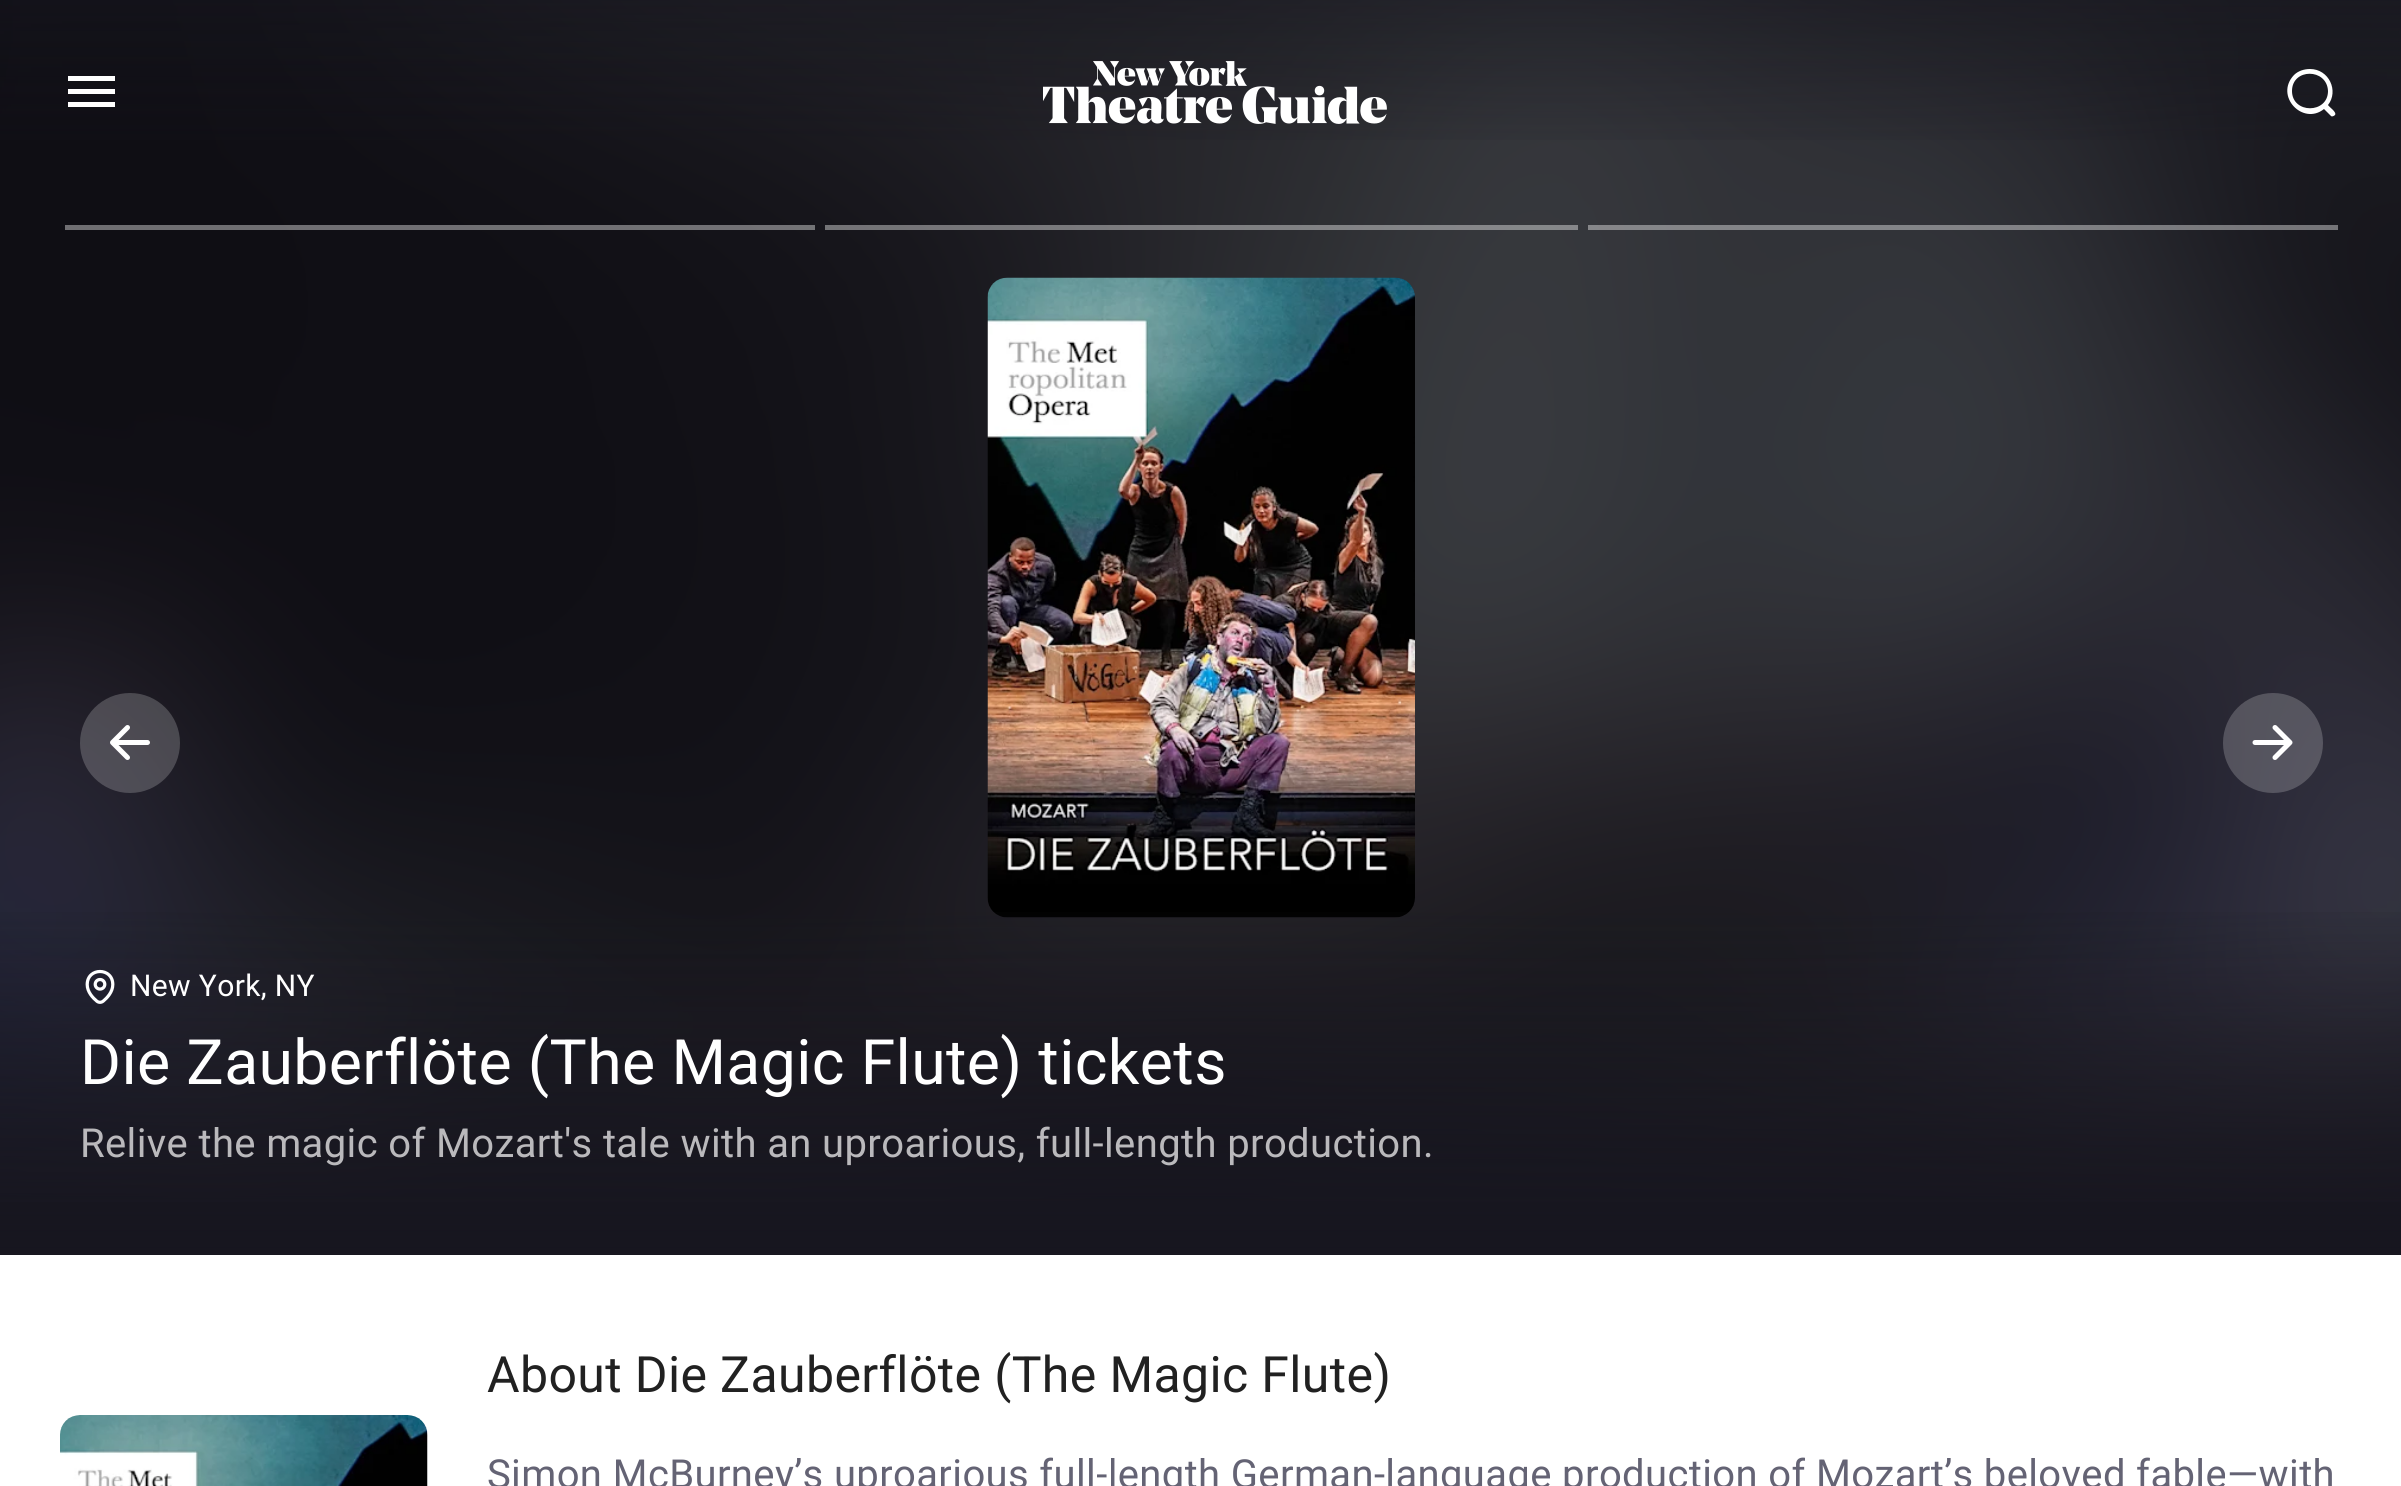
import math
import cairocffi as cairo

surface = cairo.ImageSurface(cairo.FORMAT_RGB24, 2401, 1486)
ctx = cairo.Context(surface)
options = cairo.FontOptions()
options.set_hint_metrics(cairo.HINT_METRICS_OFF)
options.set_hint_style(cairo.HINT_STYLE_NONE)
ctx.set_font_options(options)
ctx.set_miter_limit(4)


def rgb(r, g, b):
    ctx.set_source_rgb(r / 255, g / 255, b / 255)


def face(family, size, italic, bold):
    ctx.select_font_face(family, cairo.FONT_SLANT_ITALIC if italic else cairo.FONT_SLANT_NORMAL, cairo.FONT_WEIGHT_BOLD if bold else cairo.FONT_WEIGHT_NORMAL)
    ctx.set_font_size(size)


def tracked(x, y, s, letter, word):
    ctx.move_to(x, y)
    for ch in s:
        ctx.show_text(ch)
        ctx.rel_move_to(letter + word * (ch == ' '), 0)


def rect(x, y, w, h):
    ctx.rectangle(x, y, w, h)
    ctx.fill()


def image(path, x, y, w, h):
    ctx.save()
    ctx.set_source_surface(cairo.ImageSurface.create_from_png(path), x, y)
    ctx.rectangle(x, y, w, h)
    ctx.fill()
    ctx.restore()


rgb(255, 255, 255)
ctx.paint()
rgb(23, 22, 31)
rect(0, 0, 2401, 1253)
image('image1.png', 0, 0, 2401, 1202)
gradient = cairo.LinearGradient(1201, 173, 1201, -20)
gradient.add_color_stop_rgba(0, 0.09, 0.086, 0.122, 0)
gradient.add_color_stop_rgba(1, 0.09, 0.086, 0.122, 0.5)
ctx.set_source(gradient)
rect(0, 0, 2401, 140)
rgb(255, 255, 255)
ctx.new_path()
ctx.move_to(68, 107)
ctx.line_to(115, 107)
ctx.line_to(115, 102)
ctx.line_to(68, 102)
ctx.close_path()
ctx.move_to(68, 94)
ctx.line_to(115, 94)
ctx.line_to(115, 89)
ctx.line_to(68, 89)
ctx.close_path()
ctx.move_to(68, 76)
ctx.line_to(68, 81)
ctx.line_to(115, 81)
ctx.line_to(115, 76)
ctx.close_path()
ctx.fill()
image('image0.png', 1043, 61, 344, 63)
ctx.set_fill_rule(cairo.FILL_RULE_EVEN_ODD)
ctx.new_path()
ctx.move_to(2292, 91)
ctx.curve_to(2292, 68, 2327, 68, 2328, 91)
ctx.curve_to(2328, 114, 2292, 114, 2292, 91)
ctx.close_path()
ctx.move_to(2310, 69)
ctx.curve_to(2304, 69, 2298, 71, 2294, 75)
ctx.curve_to(2274, 96, 2303, 126, 2324, 109)
ctx.line_to(2331, 116)
ctx.curve_to(2332, 117, 2334, 116, 2335, 115)
ctx.curve_to(2337, 112, 2329, 107, 2328, 105)
ctx.curve_to(2339, 91, 2329, 69, 2310, 69)
ctx.close_path()
ctx.fill()
ctx.set_source_rgba(1, 1, 1, 0.4)
rect(65, 225, 750, 5)
rect(825, 225, 753, 5)
rect(1588, 225, 750, 5)
ctx.set_source_rgba(1, 1, 1, 0.2)
ctx.arc(130, 743, 50, 0, 2 * math.pi)
ctx.fill()
image('image2.png', 110, 725, 40, 35)
ctx.arc(2273, 743, 50, 0, 2 * math.pi)
ctx.fill()
image('image3.png', 2252, 725, 41, 35)
image('image4.png', 987, 277, 428, 641)
gradient = cairo.LinearGradient(1201, 885, 1201, 1255)
gradient.add_color_stop_rgba(0, 0.09, 0.086, 0.122, 0)
gradient.add_color_stop_rgba(1, 0.09, 0.086, 0.122, 1)
ctx.set_source(gradient)
rect(0, 912, 2401, 343)
image('image5.png', 85, 969, 30, 35)
face('Roboto', 30, 0, 0)
rgb(255, 255, 255)
tracked(130, 996, 'New York, NY', 0.37, 0)
face('Roboto', 62.5, 0, 0)
tracked(80, 1084, 'Die Zauberflöte (The Magic Flute) tickets', 0.37, 0)
face('Roboto', 40, 0, 0)
rgb(186, 185, 188)
tracked(80, 1157, 'Relive the magic of Mozart\'s tale with an uproarious, full-length production.', 0.37, 0)
image('image6.png', 60, 1415, 368, 71)
face('Roboto', 50, 0, 0)
rgb(33, 33, 33)
tracked(487, 1392, 'About Die Zauberflöte (The Magic Flute)', 0.37, 0)
face('Roboto', 40, 0, 0)
rgb(100, 99, 116)
tracked(487, 1488, 'Simon McBurney’s uproarious full-length German-language production of Mozart’s beloved fable—with', 0.37, 0)
surface.write_to_png('render.png')
